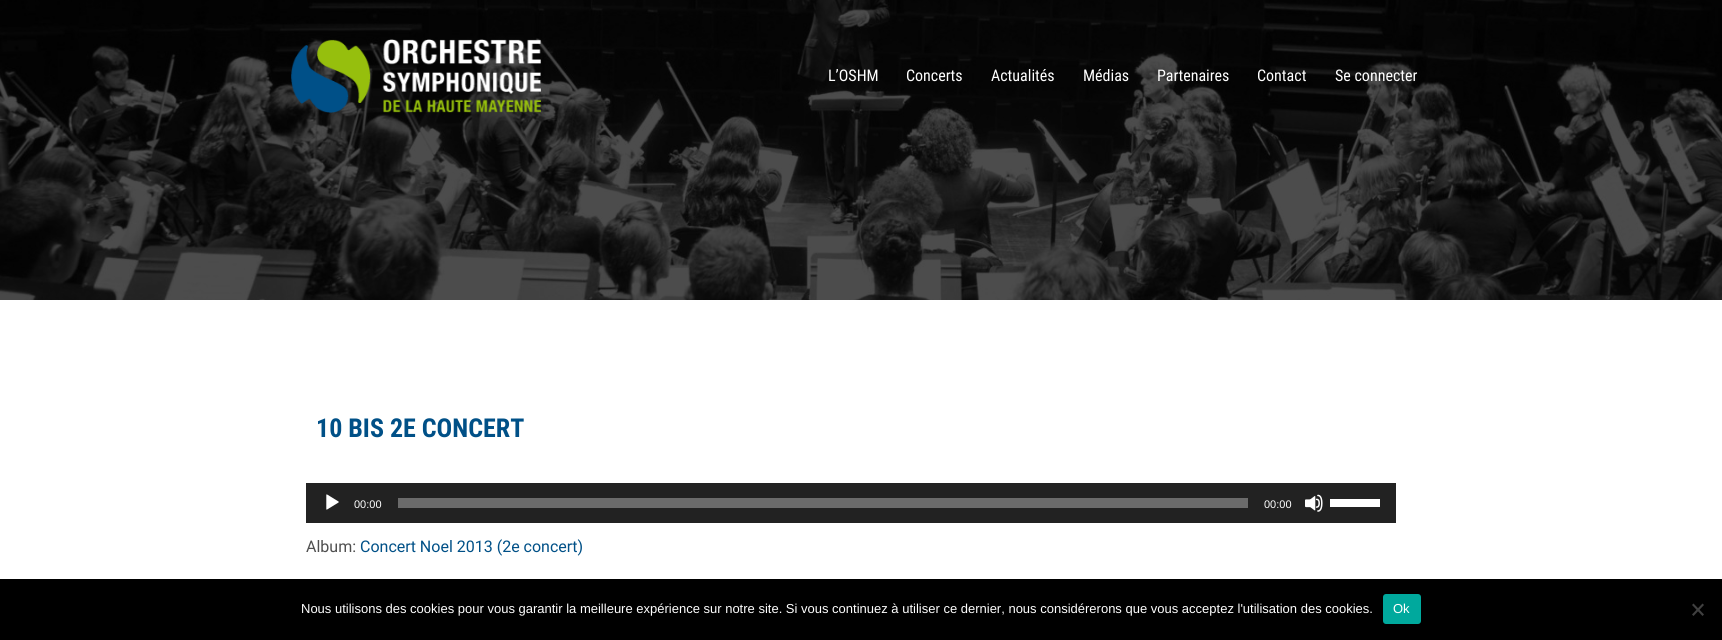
#include <cairo/cairo.h>
#include <math.h>
#include <stddef.h>

typedef struct { double x, y; const char *s; } line_t;
static cairo_t *cr;

static void rgb(unsigned color)
{
	cairo_set_source_rgb(cr, (color >> 16) / 255.0, (color >> 8 & 255) / 255.0, (color & 255) / 255.0);
}

static void rrect(double x, double y, double w, double h, double r)
{
	cairo_new_sub_path(cr);
	cairo_arc(cr, x + w - r, y + h - r, r, 0, M_PI / 2);
	cairo_arc(cr, x + r, y + h - r, r, M_PI / 2, M_PI);
	cairo_arc(cr, x + r, y + r, r, M_PI, 1.5 * M_PI);
	cairo_arc(cr, x + w - r, y + r, r, 1.5 * M_PI, 2 * M_PI);
	cairo_close_path(cr);
}

static void image(const char *path, double x, double y, double w, double h)
{
	cairo_surface_t *image = cairo_image_surface_create_from_png(path);
	cairo_save(cr);
	cairo_set_source_surface(cr, image, x, y);
	cairo_rectangle(cr, x, y, w, h);
	cairo_fill(cr);
	cairo_restore(cr);
	cairo_surface_destroy(image);
}

int main(void) {
	cairo_surface_t *surface = cairo_image_surface_create(CAIRO_FORMAT_RGB24, 1722, 640);
	cr = cairo_create(surface);
	cairo_font_options_t *options = cairo_font_options_create();
	cairo_font_options_set_hint_metrics(options, CAIRO_HINT_METRICS_OFF);
	cairo_font_options_set_hint_style(options, CAIRO_HINT_STYLE_NONE);
	cairo_set_font_options(cr, options);
	cairo_set_miter_limit(cr, 4);
	rgb(0xffffff);
	cairo_paint(cr);
	image("img/1.png", 0, 0, 1722, 300);
	image("img/2.png", 291, 39, 250, 74);
	rgb(0x222222);
	cairo_rectangle(cr, 306, 483, 1090, 40);
	cairo_fill(cr);
	image("img/3.png", 326, 494, 13, 16);
	rgb(0x6b6b6b);
	cairo_rectangle(cr, 398, 498, 850, 10);
	cairo_fill(cr);
	image("img/4.png", 1305, 494, 18, 18);
	rgb(0xffffff);
	cairo_rectangle(cr, 1330, 499, 50, 8);
	cairo_fill(cr);
	rgb(0x000000);
	cairo_rectangle(cr, 0, 579, 1722, 61);
	cairo_fill(cr);
	rgb(0x00a99d);
	rrect(1383, 594, 38, 30, 3);
	cairo_fill(cr);
	rgb(0x404040);
	cairo_new_path(cr);
	cairo_move_to(cr, 1702.5, 603.5);
	cairo_line_to(cr, 1704, 605);
	cairo_line_to(cr, 1693.5, 616);
	cairo_line_to(cr, 1692, 614.5);
	cairo_close_path(cr);
	cairo_fill(cr);
	cairo_new_path(cr);
	cairo_move_to(cr, 1692, 605);
	cairo_line_to(cr, 1693.5, 603.5);
	cairo_line_to(cr, 1704, 614.5);
	cairo_line_to(cr, 1702.5, 616);
	cairo_close_path(cr);
	cairo_fill(cr);
	cairo_select_font_face(cr, "Roboto Condensed", CAIRO_FONT_SLANT_NORMAL, CAIRO_FONT_WEIGHT_NORMAL);
	cairo_set_font_size(cr, 16);
	rgb(0xffffff);
	{
		static const line_t items[] = {
			{828, 81, "L’OSHM"},
			{906, 81, "Concerts"},
			{991, 81, "Actualités"},
			{1083, 81, "Médias"},
			{1157, 81, "Partenaires"},
			{1257, 81, "Contact"},
			{1335, 81, "Se connecter"},
		};
		for (size_t i = 0; i < sizeof items / sizeof *items; i++) {
			cairo_move_to(cr, items[i].x, items[i].y);
			cairo_show_text(cr, items[i].s);
		}
	}
	cairo_select_font_face(cr, "Roboto Condensed", CAIRO_FONT_SLANT_NORMAL, CAIRO_FONT_WEIGHT_BOLD);
	cairo_set_font_size(cr, 26);
	rgb(0x005087);
	cairo_move_to(cr, 316, 437);
	cairo_show_text(cr, "10 BIS 2E CONCERT");
	cairo_select_font_face(cr, "Liberation Sans", CAIRO_FONT_SLANT_NORMAL, CAIRO_FONT_WEIGHT_NORMAL);
	cairo_set_font_size(cr, 11);
	rgb(0xffffff);
	cairo_move_to(cr, 354, 508);
	cairo_show_text(cr, "00:00");
	cairo_move_to(cr, 1264, 508);
	cairo_show_text(cr, "00:00");
	cairo_select_font_face(cr, "Roboto", CAIRO_FONT_SLANT_NORMAL, CAIRO_FONT_WEIGHT_NORMAL);
	cairo_set_font_size(cr, 16);
	rgb(0x4f4f4f);
	cairo_move_to(cr, 306, 552);
	cairo_show_text(cr, "Album:");
	rgb(0x005087);
	cairo_move_to(cr, 360, 552);
	cairo_show_text(cr, "Concert Noel 2013 (2e concert)");
	cairo_select_font_face(cr, "Liberation Sans", CAIRO_FONT_SLANT_NORMAL, CAIRO_FONT_WEIGHT_NORMAL);
	cairo_set_font_size(cr, 13);
	rgb(0xffffff);
	cairo_move_to(cr, 301, 613);
	cairo_show_text(cr, "Nous utilisons des cookies pour vous garantir la meilleure expérience sur notre site. Si vous continuez à utiliser ce dernier, nous considérerons que vous acceptez l'utilisation des cookies.");
	cairo_move_to(cr, 1393, 613);
	cairo_show_text(cr, "Ok");
	cairo_surface_write_to_png(surface, "page.png");
	cairo_font_options_destroy(options);
	cairo_destroy(cr);
	cairo_surface_destroy(surface);
	return 0;
}
